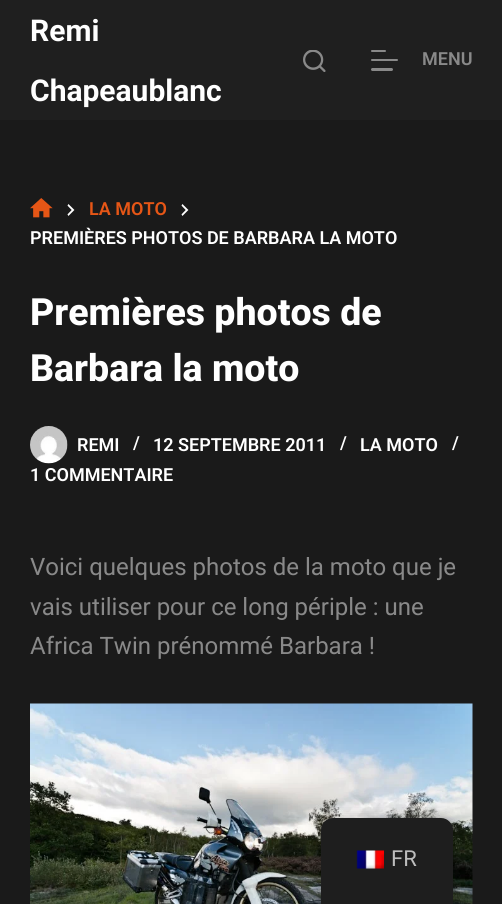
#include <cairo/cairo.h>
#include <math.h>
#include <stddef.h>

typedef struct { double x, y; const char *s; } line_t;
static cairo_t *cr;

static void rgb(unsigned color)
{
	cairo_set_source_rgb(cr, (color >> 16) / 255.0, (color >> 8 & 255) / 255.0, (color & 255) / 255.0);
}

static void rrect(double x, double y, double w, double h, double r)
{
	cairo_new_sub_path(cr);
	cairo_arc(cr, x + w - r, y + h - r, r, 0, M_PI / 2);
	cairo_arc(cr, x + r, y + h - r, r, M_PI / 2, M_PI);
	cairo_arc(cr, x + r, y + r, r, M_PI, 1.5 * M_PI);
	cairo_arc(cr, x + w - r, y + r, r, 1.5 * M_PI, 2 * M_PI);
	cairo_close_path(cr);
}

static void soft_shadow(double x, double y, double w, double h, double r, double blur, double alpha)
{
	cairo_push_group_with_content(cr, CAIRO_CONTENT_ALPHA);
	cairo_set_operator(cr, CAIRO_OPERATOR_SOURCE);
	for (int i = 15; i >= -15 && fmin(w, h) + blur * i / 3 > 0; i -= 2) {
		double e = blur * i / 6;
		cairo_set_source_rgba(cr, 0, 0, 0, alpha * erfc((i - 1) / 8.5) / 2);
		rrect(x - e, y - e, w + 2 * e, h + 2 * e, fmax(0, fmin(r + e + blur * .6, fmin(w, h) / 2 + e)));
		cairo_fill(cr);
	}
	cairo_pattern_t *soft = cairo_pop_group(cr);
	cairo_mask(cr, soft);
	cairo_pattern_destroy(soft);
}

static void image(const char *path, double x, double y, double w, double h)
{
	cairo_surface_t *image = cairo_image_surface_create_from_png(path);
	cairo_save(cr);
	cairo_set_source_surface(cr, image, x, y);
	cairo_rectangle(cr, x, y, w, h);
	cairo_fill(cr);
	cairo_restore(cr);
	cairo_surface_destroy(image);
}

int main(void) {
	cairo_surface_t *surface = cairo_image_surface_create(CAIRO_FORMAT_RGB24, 502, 904);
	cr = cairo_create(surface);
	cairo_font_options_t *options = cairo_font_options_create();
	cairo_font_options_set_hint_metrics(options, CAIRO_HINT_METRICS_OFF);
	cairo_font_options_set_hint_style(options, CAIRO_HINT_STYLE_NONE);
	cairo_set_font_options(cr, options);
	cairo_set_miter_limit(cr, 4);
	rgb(0x1a1a1a);
	cairo_paint(cr);
	rgb(0x1f1f1f);
	cairo_rectangle(cr, 0, 0, 502, 120);
	cairo_fill(cr);
	image("img/1.png", 303, 50, 23, 22);
	rgb(0x898989);
	rrect(371, 50, 15, 2, 1);
	cairo_fill(cr);
	rrect(371, 59, 27, 2, 1);
	cairo_fill(cr);
	rrect(371, 68, 22, 3, 1.5);
	cairo_fill(cr);
	image("img/2.png", 30, 198, 23, 20);
	image("img/3.png", 67, 204, 8, 12);
	image("img/3.png", 181, 204, 8, 12);
	image("img/4.png", 30, 426, 38, 38);
	image("img/5.png", 30, 703, 443, 201);
	rgb(0x000000);
	soft_shadow(321, 818, 132, 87, 12, 6, 0.25);
	rgb(0x1e1e1e);
	cairo_new_path(cr);
	cairo_move_to(cr, 333, 818);
	cairo_line_to(cr, 441, 818);
	cairo_curve_to(cr, 447.5, 818, 453, 823.5, 453, 830);
	cairo_line_to(cr, 453, 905);
	cairo_line_to(cr, 321, 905);
	cairo_line_to(cr, 321, 830);
	cairo_curve_to(cr, 321, 823.5, 326.5, 818, 333, 818);
	cairo_close_path(cr);
	cairo_fill(cr);
	image("img/6.png", 356, 850, 28, 19);
	cairo_select_font_face(cr, "Roboto", CAIRO_FONT_SLANT_NORMAL, CAIRO_FONT_WEIGHT_BOLD);
	cairo_set_font_size(cr, 30);
	rgb(0xffffff);
	cairo_move_to(cr, 30, 41);
	cairo_show_text(cr, "Remi");
	cairo_move_to(cr, 30, 101);
	cairo_show_text(cr, "Chapeaublanc");
	cairo_select_font_face(cr, "Roboto SemiBold", CAIRO_FONT_SLANT_NORMAL, CAIRO_FONT_WEIGHT_NORMAL);
	cairo_set_font_size(cr, 18);
	rgb(0x898989);
	cairo_move_to(cr, 422, 65);
	cairo_show_text(cr, "MENU");
	rgb(0xe65616);
	cairo_move_to(cr, 89, 215);
	cairo_show_text(cr, "LA MOTO");
	rgb(0xffffff);
	cairo_move_to(cr, 30, 244);
	cairo_show_text(cr, "PREMIÈRES PHOTOS DE BARBARA LA MOTO");
	cairo_select_font_face(cr, "Roboto ExtraBold", CAIRO_FONT_SLANT_NORMAL, CAIRO_FONT_WEIGHT_NORMAL);
	cairo_set_font_size(cr, 37.5);
	cairo_move_to(cr, 30, 325);
	cairo_show_text(cr, "Premières photos de");
	cairo_move_to(cr, 30, 381);
	cairo_show_text(cr, "Barbara la moto");
	cairo_select_font_face(cr, "Roboto SemiBold", CAIRO_FONT_SLANT_NORMAL, CAIRO_FONT_WEIGHT_NORMAL);
	cairo_set_font_size(cr, 18);
	{
		static const line_t items[] = {
			{77, 451, "REMI"},
			{133, 449, "/"},
			{153, 451, "12 SEPTEMBRE 2011"},
			{340, 449, "/"},
			{360, 451, "LA MOTO"},
			{452, 449, "/"},
			{30, 481, "1 COMMENTAIRE"},
		};
		for (size_t i = 0; i < sizeof items / sizeof *items; i++) {
			cairo_move_to(cr, items[i].x, items[i].y);
			cairo_show_text(cr, items[i].s);
		}
	}
	cairo_select_font_face(cr, "Roboto", CAIRO_FONT_SLANT_NORMAL, CAIRO_FONT_WEIGHT_NORMAL);
	cairo_set_font_size(cr, 24);
	rgb(0x898989);
	{
		static const line_t items[] = {
			{30, 575, "Voici quelques photos de la moto que je"},
			{30, 615, "vais utiliser pour ce long périple : une"},
			{30, 654, "Africa Twin prénommé Barbara !"},
		};
		for (size_t i = 0; i < sizeof items / sizeof *items; i++) {
			cairo_move_to(cr, items[i].x, items[i].y);
			cairo_show_text(cr, items[i].s);
		}
	}
	cairo_set_font_size(cr, 22);
	rgb(0xbdbdbd);
	cairo_move_to(cr, 391, 866);
	cairo_show_text(cr, "FR");
	cairo_surface_write_to_png(surface, "page.png");
	cairo_font_options_destroy(options);
	cairo_destroy(cr);
	cairo_surface_destroy(surface);
	return 0;
}
